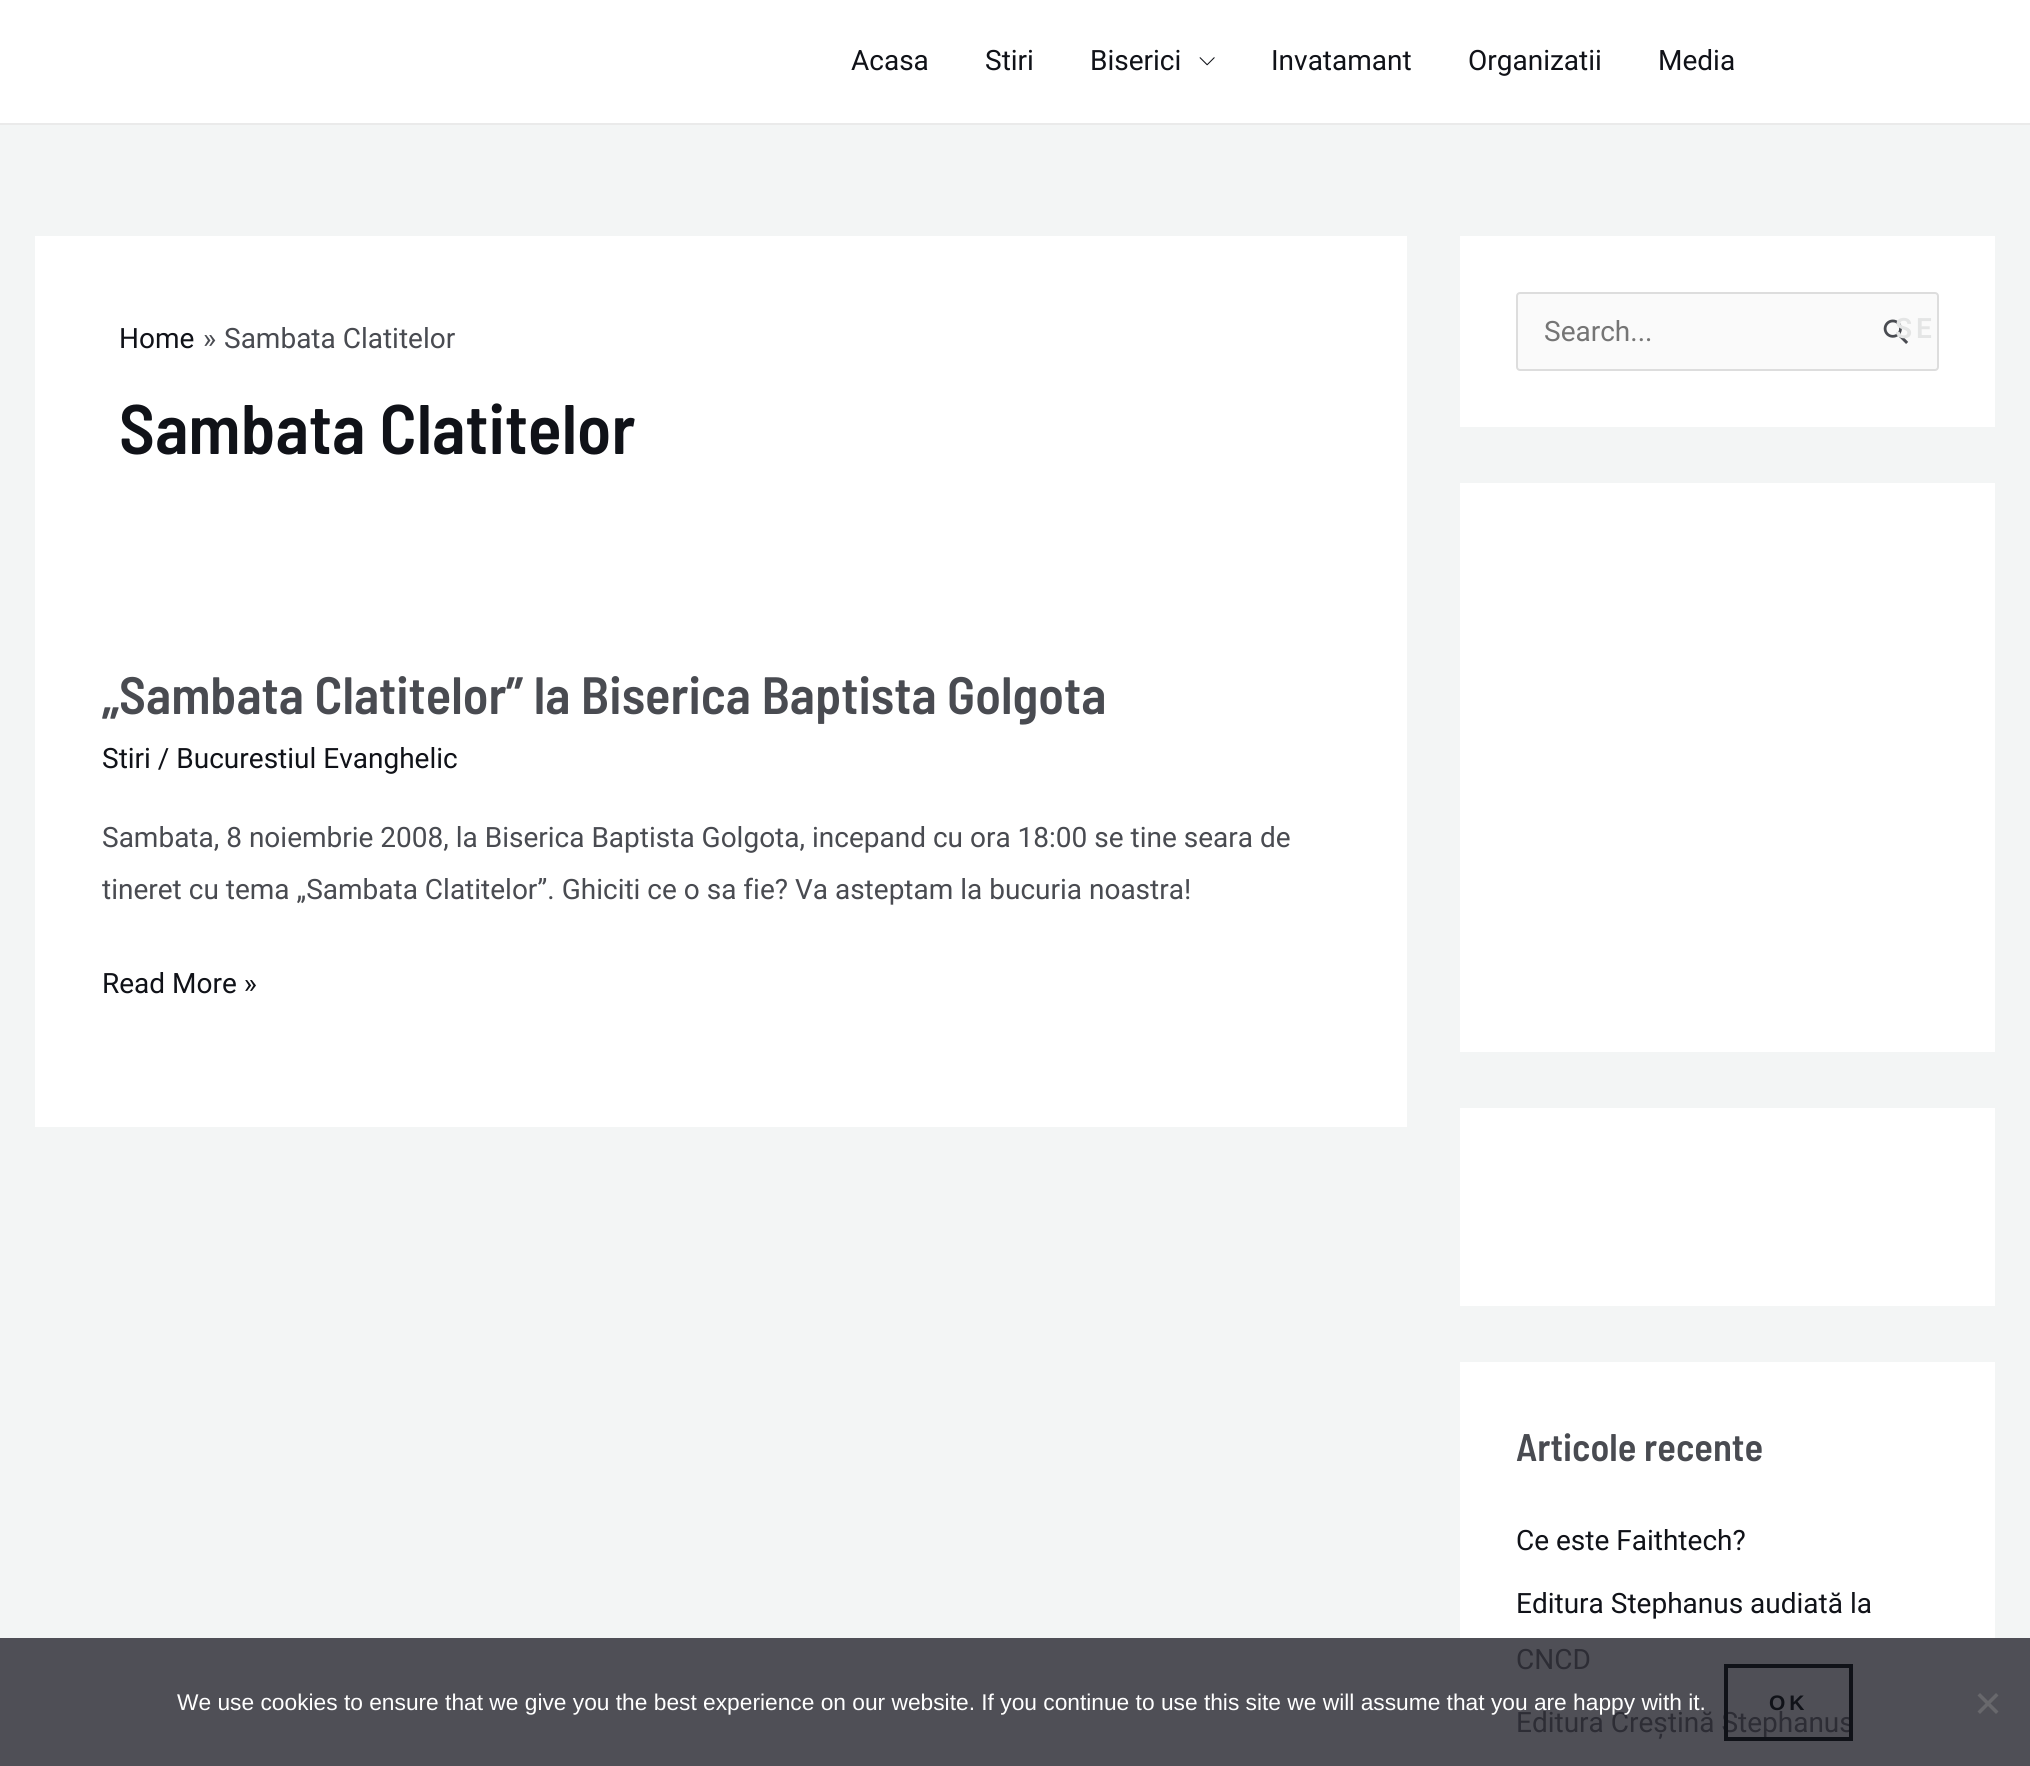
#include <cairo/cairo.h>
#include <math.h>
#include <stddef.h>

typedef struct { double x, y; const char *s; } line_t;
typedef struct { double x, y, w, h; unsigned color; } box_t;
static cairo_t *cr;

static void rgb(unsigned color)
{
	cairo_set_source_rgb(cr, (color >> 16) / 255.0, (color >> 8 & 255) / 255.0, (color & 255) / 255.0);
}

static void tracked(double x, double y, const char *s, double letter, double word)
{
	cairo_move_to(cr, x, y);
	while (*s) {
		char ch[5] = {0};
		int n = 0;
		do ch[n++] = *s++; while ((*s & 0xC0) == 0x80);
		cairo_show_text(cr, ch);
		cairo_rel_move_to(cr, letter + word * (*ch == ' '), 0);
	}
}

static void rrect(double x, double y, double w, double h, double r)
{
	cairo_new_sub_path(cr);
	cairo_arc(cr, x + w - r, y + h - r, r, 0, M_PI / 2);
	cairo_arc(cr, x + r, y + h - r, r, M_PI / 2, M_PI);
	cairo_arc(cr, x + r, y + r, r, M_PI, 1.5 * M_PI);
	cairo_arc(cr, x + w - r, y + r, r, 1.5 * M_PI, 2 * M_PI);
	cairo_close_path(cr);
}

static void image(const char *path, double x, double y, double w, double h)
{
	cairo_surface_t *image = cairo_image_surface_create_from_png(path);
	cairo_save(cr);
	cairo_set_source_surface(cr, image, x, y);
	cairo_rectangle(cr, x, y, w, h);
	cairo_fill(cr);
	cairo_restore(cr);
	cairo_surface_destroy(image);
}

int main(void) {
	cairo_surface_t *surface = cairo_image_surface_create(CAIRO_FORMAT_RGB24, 2030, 1766);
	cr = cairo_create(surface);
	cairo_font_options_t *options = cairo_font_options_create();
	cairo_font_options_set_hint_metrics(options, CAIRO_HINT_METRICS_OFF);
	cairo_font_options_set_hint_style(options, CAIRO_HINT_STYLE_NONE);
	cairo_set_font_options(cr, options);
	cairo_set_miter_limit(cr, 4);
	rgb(0xf3f5f5);
	cairo_paint(cr);
	{
		static const box_t items[] = {
			{0, 1638, 2030, 128, 0x4f4f56},
			{0, 0, 2030, 123, 0xffffff},
			{0, 123, 2030, 2, 0xeaeaea},
		};
		for (size_t i = 0; i < sizeof items / sizeof *items; i++) {
			rgb(items[i].color);
			cairo_rectangle(cr, items[i].x, items[i].y, items[i].w, items[i].h);
			cairo_fill(cr);
		}
	}
	image("img/1.png", 1199, 57, 16, 9);
	rgb(0xffffff);
	cairo_rectangle(cr, 35, 236, 1372, 891);
	cairo_fill(cr);
	cairo_rectangle(cr, 1460, 236, 535, 191);
	cairo_fill(cr);
	rgb(0xfafafa);
	rrect(1517, 293, 421, 77, 3);
	cairo_fill_preserve(cr);
	rgb(0xdddddd);
	cairo_stroke(cr);
	image("img/2.png", 1883, 319, 26, 25);
	{
		static const box_t items[] = {
			{1460, 483, 535, 569, 0xffffff},
			{1460, 1108, 535, 198, 0xffffff},
			{1460, 1362, 535, 276, 0xffffff},
		};
		for (size_t i = 0; i < sizeof items / sizeof *items; i++) {
			rgb(items[i].color);
			cairo_rectangle(cr, items[i].x, items[i].y, items[i].w, items[i].h);
			cairo_fill(cr);
		}
	}
	rgb(0x68686c);
	cairo_new_path(cr);
	cairo_move_to(cr, 1996, 1693);
	cairo_line_to(cr, 1998.5, 1695.5);
	cairo_line_to(cr, 1980, 1714);
	cairo_line_to(cr, 1977.5, 1711.5);
	cairo_close_path(cr);
	cairo_fill(cr);
	cairo_new_path(cr);
	cairo_move_to(cr, 1977.5, 1695.5);
	cairo_line_to(cr, 1980, 1693);
	cairo_line_to(cr, 1998.5, 1711.5);
	cairo_line_to(cr, 1996, 1714);
	cairo_close_path(cr);
	cairo_fill(cr);
	cairo_select_font_face(cr, "Roboto", CAIRO_FONT_SLANT_NORMAL, CAIRO_FONT_WEIGHT_NORMAL);
	cairo_set_font_size(cr, 28);
	rgb(0x101218);
	{
		static const line_t items[] = {
			{851, 70, "Acasa"},
			{985, 70, "Stiri"},
			{1090, 70, "Biserici"},
			{1271, 70, "Invatamant"},
			{1468, 70, "Organizatii"},
			{1658, 70, "Media"},
			{119, 348, "Home"},
		};
		for (size_t i = 0; i < sizeof items / sizeof *items; i++) {
			cairo_move_to(cr, items[i].x, items[i].y);
			cairo_show_text(cr, items[i].s);
		}
	}
	rgb(0x494b51);
	cairo_move_to(cr, 203, 348);
	cairo_show_text(cr, "»");
	cairo_move_to(cr, 224, 348);
	cairo_show_text(cr, "Sambata Clatitelor");
	cairo_select_font_face(cr, "Barlow Semi Condensed SemiBold", CAIRO_FONT_SLANT_NORMAL, CAIRO_FONT_WEIGHT_NORMAL);
	cairo_set_font_size(cr, 70);
	rgb(0x101218);
	cairo_move_to(cr, 119, 454);
	cairo_show_text(cr, "Sambata Clatitelor");
	cairo_set_font_size(cr, 52.5);
	rgb(0x494b51);
	cairo_move_to(cr, 102, 714);
	cairo_show_text(cr, "„Sambata Clatitelor” la Biserica Baptista Golgota");
	cairo_select_font_face(cr, "Roboto", CAIRO_FONT_SLANT_NORMAL, CAIRO_FONT_WEIGHT_NORMAL);
	cairo_set_font_size(cr, 28);
	rgb(0x101218);
	cairo_move_to(cr, 102, 768);
	cairo_show_text(cr, "Stiri / Bucurestiul Evanghelic");
	rgb(0x494b51);
	cairo_move_to(cr, 102, 847);
	cairo_show_text(cr, "Sambata, 8 noiembrie 2008, la Biserica Baptista Golgota, incepand cu ora 18:00 se tine seara de");
	cairo_move_to(cr, 102, 899);
	cairo_show_text(cr, "tineret cu tema „Sambata Clatitelor”. Ghiciti ce o sa fie? Va asteptam la bucuria noastra!");
	rgb(0x101218);
	cairo_move_to(cr, 102, 993);
	cairo_show_text(cr, "Read More »");
	cairo_select_font_face(cr, "Roboto SemiBold", CAIRO_FONT_SLANT_NORMAL, CAIRO_FONT_WEIGHT_NORMAL);
	rgb(0xe4e5e5);
	tracked(1895, 338, "SE", 4, 0);
	cairo_select_font_face(cr, "Roboto", CAIRO_FONT_SLANT_NORMAL, CAIRO_FONT_WEIGHT_NORMAL);
	rgb(0x757575);
	cairo_move_to(cr, 1544, 341);
	cairo_show_text(cr, "Search...");
	cairo_select_font_face(cr, "Barlow Semi Condensed SemiBold", CAIRO_FONT_SLANT_NORMAL, CAIRO_FONT_WEIGHT_NORMAL);
	cairo_set_font_size(cr, 38.5);
	rgb(0x494b51);
	cairo_move_to(cr, 1516, 1461);
	cairo_show_text(cr, "Articole recente");
	cairo_select_font_face(cr, "Roboto", CAIRO_FONT_SLANT_NORMAL, CAIRO_FONT_WEIGHT_NORMAL);
	cairo_set_font_size(cr, 28);
	rgb(0x101218);
	cairo_move_to(cr, 1516, 1550);
	cairo_show_text(cr, "Ce este Faithtech?");
	cairo_move_to(cr, 1516, 1613);
	cairo_show_text(cr, "Editura Stephanus audiată la");
	rgb(0x2d2d35);
	cairo_move_to(cr, 1516, 1669);
	cairo_show_text(cr, "CNCD");
	cairo_move_to(cr, 1516, 1732);
	cairo_show_text(cr, "Editura Creștină Stephanus");
	cairo_select_font_face(cr, "Liberation Sans", CAIRO_FONT_SLANT_NORMAL, CAIRO_FONT_WEIGHT_NORMAL);
	cairo_set_font_size(cr, 22.75);
	rgb(0xffffff);
	cairo_move_to(cr, 177, 1710);
	cairo_show_text(cr, "We use cookies to ensure that we give you the best experience on our website. If you continue to use this site we will assume that you are happy with it.");
	cairo_rectangle(cr, 1726, 1666, 125, 73);
	rgb(0x101218);
	cairo_set_line_width(cr, 4);
	cairo_stroke(cr);
	cairo_select_font_face(cr, "Liberation Sans", CAIRO_FONT_SLANT_NORMAL, CAIRO_FONT_WEIGHT_BOLD);
	cairo_set_font_size(cr, 21);
	tracked(1769, 1710, "OK", 4, 0);
	cairo_surface_write_to_png(surface, "page.png");
	cairo_font_options_destroy(options);
	cairo_destroy(cr);
	cairo_surface_destroy(surface);
	return 0;
}
